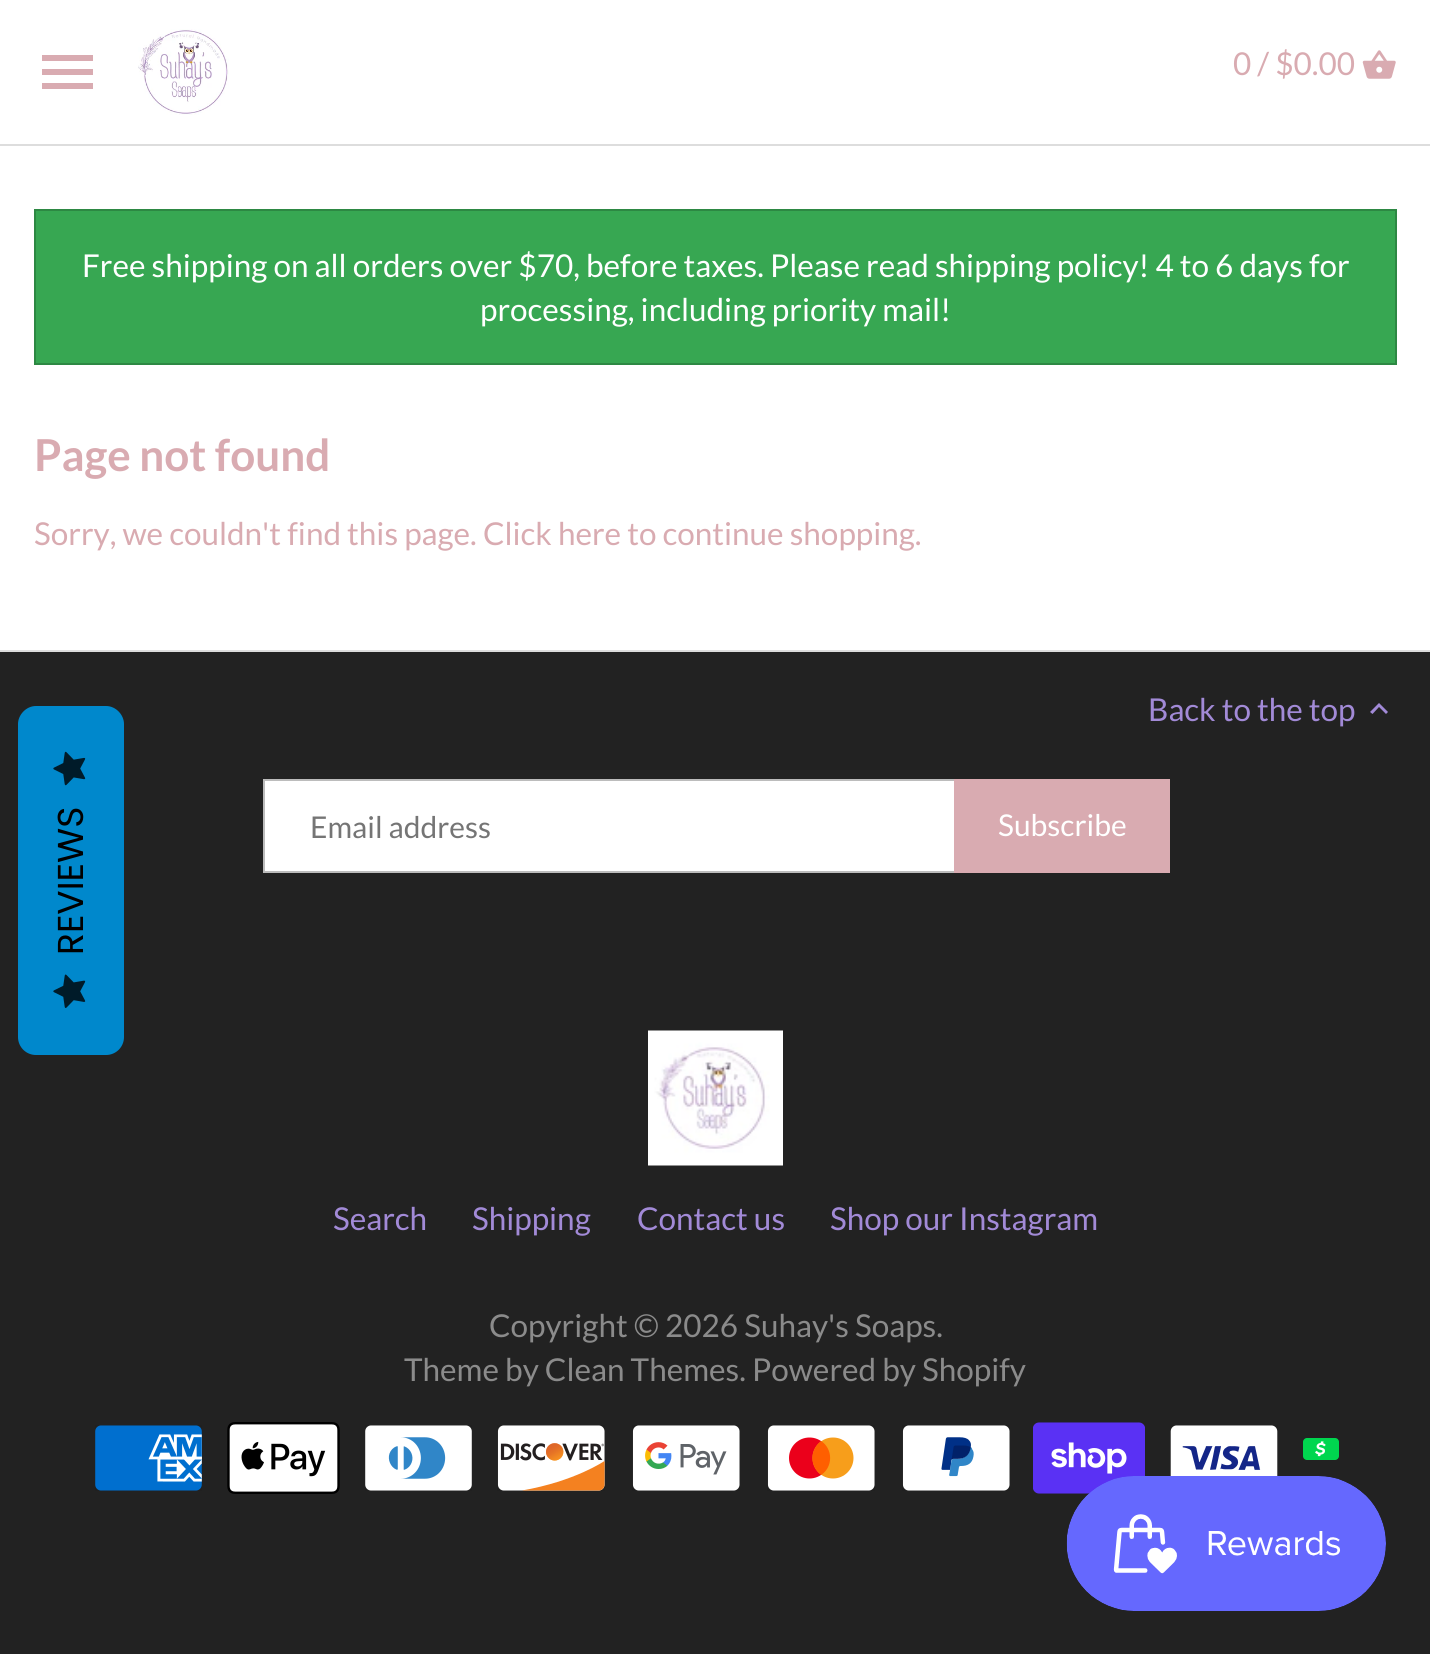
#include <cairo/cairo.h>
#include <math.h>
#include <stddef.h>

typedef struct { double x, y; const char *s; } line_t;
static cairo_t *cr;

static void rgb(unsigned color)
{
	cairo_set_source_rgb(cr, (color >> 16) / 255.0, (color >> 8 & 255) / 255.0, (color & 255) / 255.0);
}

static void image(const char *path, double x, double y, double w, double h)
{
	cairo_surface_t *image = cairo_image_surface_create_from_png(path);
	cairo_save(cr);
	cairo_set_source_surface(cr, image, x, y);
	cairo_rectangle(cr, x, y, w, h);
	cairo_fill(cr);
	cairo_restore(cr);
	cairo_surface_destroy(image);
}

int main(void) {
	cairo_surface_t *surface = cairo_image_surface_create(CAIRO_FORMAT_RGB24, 1430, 1654);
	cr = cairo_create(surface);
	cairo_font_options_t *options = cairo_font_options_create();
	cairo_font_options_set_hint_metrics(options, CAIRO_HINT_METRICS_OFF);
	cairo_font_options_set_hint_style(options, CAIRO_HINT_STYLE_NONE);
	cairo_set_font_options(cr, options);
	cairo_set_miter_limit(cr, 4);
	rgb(0x222222);
	cairo_paint(cr);
	rgb(0xffffff);
	cairo_rectangle(cr, 0, 0, 1430, 650);
	cairo_fill(cr);
	rgb(0xdddddd);
	cairo_rectangle(cr, 0, 144, 1430, 2);
	cairo_fill(cr);
	rgb(0xd9abb1);
	cairo_new_path(cr);
	cairo_move_to(cr, 42, 89);
	cairo_line_to(cr, 93, 89);
	cairo_line_to(cr, 93, 83);
	cairo_line_to(cr, 42, 83);
	cairo_close_path(cr);
	cairo_move_to(cr, 42, 75);
	cairo_line_to(cr, 93, 75);
	cairo_line_to(cr, 93, 69);
	cairo_line_to(cr, 42, 69);
	cairo_close_path(cr);
	cairo_move_to(cr, 42, 55);
	cairo_line_to(cr, 42, 61);
	cairo_line_to(cr, 93, 61);
	cairo_line_to(cr, 93, 55);
	cairo_close_path(cr);
	cairo_fill(cr);
	image("img/1.png", 138, 29, 91, 86);
	image("img/2.png", 1362, 50, 34, 29);
	rgb(0x37a752);
	cairo_rectangle(cr, 35, 210, 1361, 154);
	cairo_fill_preserve(cr);
	rgb(0x2d8843);
	cairo_stroke(cr);
	rgb(0xdddddd);
	cairo_rectangle(cr, 0, 650, 1430, 2);
	cairo_fill(cr);
	rgb(0xa28ad7);
	cairo_new_path(cr);
	cairo_move_to(cr, 1372.5, 714);
	cairo_line_to(cr, 1379, 707);
	cairo_line_to(cr, 1386, 714);
	cairo_line_to(cr, 1388, 712);
	cairo_line_to(cr, 1379, 703);
	cairo_line_to(cr, 1370, 712);
	cairo_close_path(cr);
	cairo_fill(cr);
	rgb(0xffffff);
	cairo_rectangle(cr, 265, 781, 689, 90);
	cairo_fill(cr);
	cairo_rectangle(cr, 264, 780, 903, 92);
	rgb(0xbcbcbc);
	cairo_stroke(cr);
	rgb(0xd9abb1);
	cairo_rectangle(cr, 954, 779, 216, 94);
	cairo_fill(cr);
	image("img/3.png", 648, 1030, 135, 136);
	image("img/4.png", 95, 1425, 107, 66);
	image("img/5.png", 227, 1422, 113, 72);
	image("img/6.png", 365, 1425, 107, 66);
	image("img/7.png", 497, 1425, 108, 66);
	image("img/8.png", 632, 1425, 108, 66);
	image("img/9.png", 767, 1425, 108, 66);
	image("img/10.png", 902, 1425, 108, 66);
	image("img/11.png", 1033, 1422, 112, 72);
	image("img/12.png", 1170, 1425, 108, 51);
	image("img/13.png", 1303, 1438, 36, 22);
	rgb(0x0088cc);
	cairo_new_path(cr);
	cairo_move_to(cr, 18, 1037);
	cairo_line_to(cr, 18, 724);
	cairo_curve_to(cr, 18, 715, 26, 706, 36, 706);
	cairo_line_to(cr, 106, 706);
	cairo_curve_to(cr, 116, 706, 124, 715, 124, 724);
	cairo_line_to(cr, 124, 1037);
	cairo_curve_to(cr, 124, 1047, 116, 1055, 106, 1055);
	cairo_line_to(cr, 36, 1055);
	cairo_curve_to(cr, 26, 1055, 18, 1047, 18, 1037);
	cairo_close_path(cr);
	cairo_fill(cr);
	image("img/14.png", 53, 751, 33, 35);
	image("img/15.png", 53, 974, 33, 34);
	image("img/16.png", 1066, 1476, 320, 135);
	cairo_select_font_face(cr, "Lato", CAIRO_FONT_SLANT_NORMAL, CAIRO_FONT_WEIGHT_NORMAL);
	cairo_set_font_size(cr, 31.5);
	rgb(0xd9abb1);
	cairo_move_to(cr, 1233, 75);
	cairo_show_text(cr, "0 / $0.00");
	rgb(0xffffff);
	cairo_move_to(cr, 82, 277);
	cairo_show_text(cr, "Free shipping on all orders over $70, before taxes. Please read shipping policy! 4 to 6 days for");
	cairo_move_to(cr, 480, 321);
	cairo_show_text(cr, "processing, including priority mail!");
	cairo_select_font_face(cr, "Lato", CAIRO_FONT_SLANT_NORMAL, CAIRO_FONT_WEIGHT_BOLD);
	cairo_set_font_size(cr, 44);
	rgb(0xd9abb1);
	cairo_move_to(cr, 34, 471);
	cairo_show_text(cr, "Page not found");
	cairo_select_font_face(cr, "Lato", CAIRO_FONT_SLANT_NORMAL, CAIRO_FONT_WEIGHT_NORMAL);
	cairo_set_font_size(cr, 31.5);
	cairo_move_to(cr, 34, 545);
	cairo_show_text(cr, "Sorry, we couldn't find this page. Click here to continue shopping.");
	rgb(0xa28ad7);
	cairo_move_to(cr, 1148, 721);
	cairo_show_text(cr, "Back to the top");
	cairo_set_font_size(cr, 30);
	rgb(0x757575);
	cairo_move_to(cr, 310, 838);
	cairo_show_text(cr, "Email address");
	rgb(0xffffff);
	cairo_move_to(cr, 998, 836);
	cairo_show_text(cr, "Subscribe");
	cairo_set_font_size(cr, 31.5);
	rgb(0xa28ad7);
	{
		static const line_t items[] = {
			{333, 1230, "Search"},
			{472, 1230, "Shipping"},
			{637, 1230, "Contact us"},
			{830, 1230, "Shop our Instagram"},
		};
		for (size_t i = 0; i < sizeof items / sizeof *items; i++) {
			cairo_move_to(cr, items[i].x, items[i].y);
			cairo_show_text(cr, items[i].s);
		}
	}
	rgb(0x8b8b8b);
	cairo_move_to(cr, 489, 1337);
	cairo_show_text(cr, "Copyright © 2026 Suhay's Soaps.");
	cairo_move_to(cr, 404, 1381);
	cairo_show_text(cr, "Theme by Clean Themes. Powered by Shopify");
	cairo_select_font_face(cr, "Poppins", CAIRO_FONT_SLANT_NORMAL, CAIRO_FONT_WEIGHT_NORMAL);
	cairo_set_font_size(cr, 36);
	rgb(0x000000);
	cairo_save(cr);
	cairo_translate(cr, 83, 955);
	cairo_rotate(cr, -90 * M_PI / 180);
	cairo_move_to(cr, 0, 0);
	cairo_show_text(cr, "REVIEWS");
	cairo_restore(cr);
	cairo_surface_write_to_png(surface, "page.png");
	cairo_font_options_destroy(options);
	cairo_destroy(cr);
	cairo_surface_destroy(surface);
	return 0;
}
